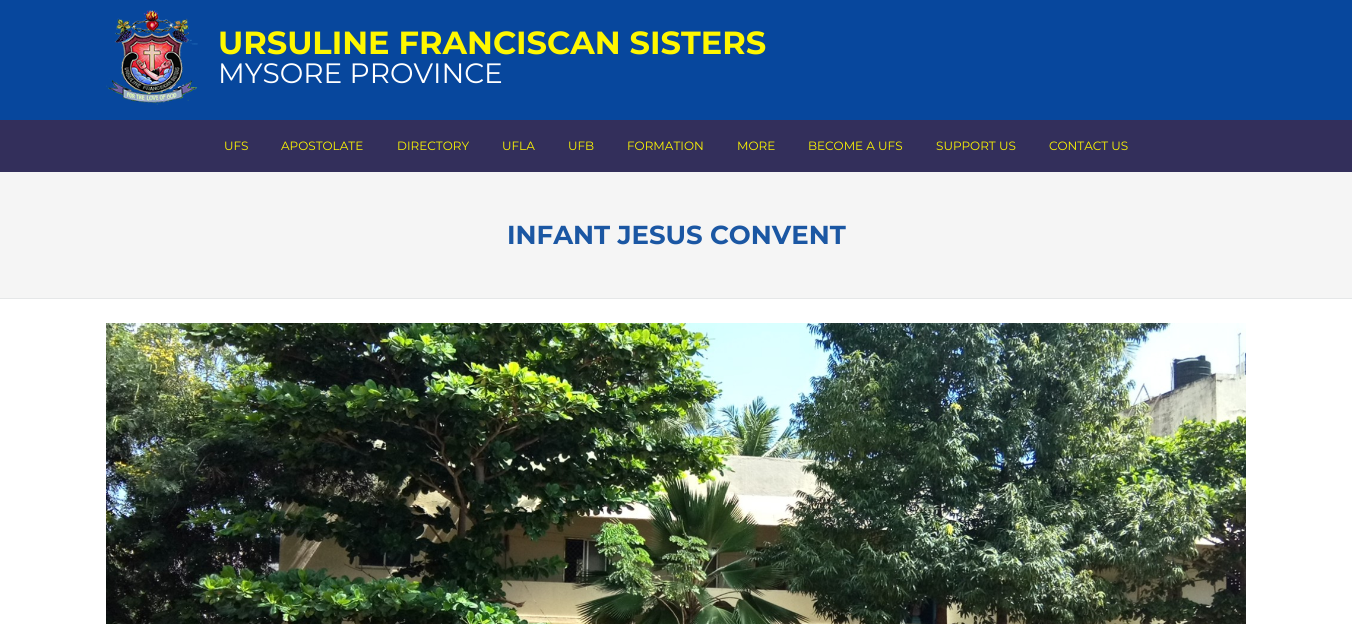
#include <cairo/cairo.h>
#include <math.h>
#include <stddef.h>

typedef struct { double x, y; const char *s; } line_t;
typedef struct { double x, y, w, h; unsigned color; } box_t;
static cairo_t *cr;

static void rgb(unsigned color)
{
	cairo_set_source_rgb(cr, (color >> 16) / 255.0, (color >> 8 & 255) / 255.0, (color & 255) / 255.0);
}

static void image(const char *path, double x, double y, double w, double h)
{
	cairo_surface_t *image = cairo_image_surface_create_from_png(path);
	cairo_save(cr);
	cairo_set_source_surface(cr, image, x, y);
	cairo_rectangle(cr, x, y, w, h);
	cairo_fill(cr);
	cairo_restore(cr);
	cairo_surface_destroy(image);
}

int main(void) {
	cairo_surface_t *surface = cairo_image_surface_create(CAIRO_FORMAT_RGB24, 1352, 624);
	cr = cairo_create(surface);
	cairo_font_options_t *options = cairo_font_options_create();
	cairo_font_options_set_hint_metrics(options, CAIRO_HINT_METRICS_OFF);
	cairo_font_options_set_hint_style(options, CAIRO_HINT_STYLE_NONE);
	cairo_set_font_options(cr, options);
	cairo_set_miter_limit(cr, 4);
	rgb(0xffffff);
	cairo_paint(cr);
	rgb(0x07479d);
	cairo_rectangle(cr, 0, 0, 1352, 120);
	cairo_fill(cr);
	image("img/1.png", 106, 10, 92, 95);
	{
		static const box_t items[] = {
			{0, 120, 1352, 52, 0x332f5b},
			{0, 172, 1352, 126, 0xf5f5f5},
			{0, 298, 1352, 1, 0xe5e7e8},
		};
		for (size_t i = 0; i < sizeof items / sizeof *items; i++) {
			rgb(items[i].color);
			cairo_rectangle(cr, items[i].x, items[i].y, items[i].w, items[i].h);
			cairo_fill(cr);
		}
	}
	image("img/2.png", 106, 323, 1140, 301);
	cairo_select_font_face(cr, "Montserrat", CAIRO_FONT_SLANT_NORMAL, CAIRO_FONT_WEIGHT_BOLD);
	cairo_set_font_size(cr, 32);
	rgb(0xfff700);
	cairo_move_to(cr, 218, 54);
	cairo_show_text(cr, "URSULINE FRANCISCAN SISTERS");
	cairo_select_font_face(cr, "Montserrat", CAIRO_FONT_SLANT_NORMAL, CAIRO_FONT_WEIGHT_NORMAL);
	cairo_set_font_size(cr, 28);
	rgb(0xffffff);
	cairo_move_to(cr, 218, 83);
	cairo_show_text(cr, "MYSORE PROVINCE");
	cairo_set_font_size(cr, 12);
	rgb(0xfff700);
	{
		static const line_t items[] = {
			{224, 150, "UFS"},
			{281, 150, "APOSTOLATE"},
			{397, 150, "DIRECTORY"},
			{502, 150, "UFLA"},
			{568, 150, "UFB"},
			{627, 150, "FORMATION"},
			{737, 150, "MORE"},
			{808, 150, "BECOME A UFS"},
			{936, 150, "SUPPORT US"},
			{1049, 150, "CONTACT US"},
		};
		for (size_t i = 0; i < sizeof items / sizeof *items; i++) {
			cairo_move_to(cr, items[i].x, items[i].y);
			cairo_show_text(cr, items[i].s);
		}
	}
	cairo_select_font_face(cr, "Montserrat", CAIRO_FONT_SLANT_NORMAL, CAIRO_FONT_WEIGHT_BOLD);
	cairo_set_font_size(cr, 26);
	rgb(0x1b57a3);
	cairo_move_to(cr, 507, 244);
	cairo_show_text(cr, "INFANT JESUS CONVENT");
	cairo_surface_write_to_png(surface, "page.png");
	cairo_font_options_destroy(options);
	cairo_destroy(cr);
	cairo_surface_destroy(surface);
	return 0;
}
